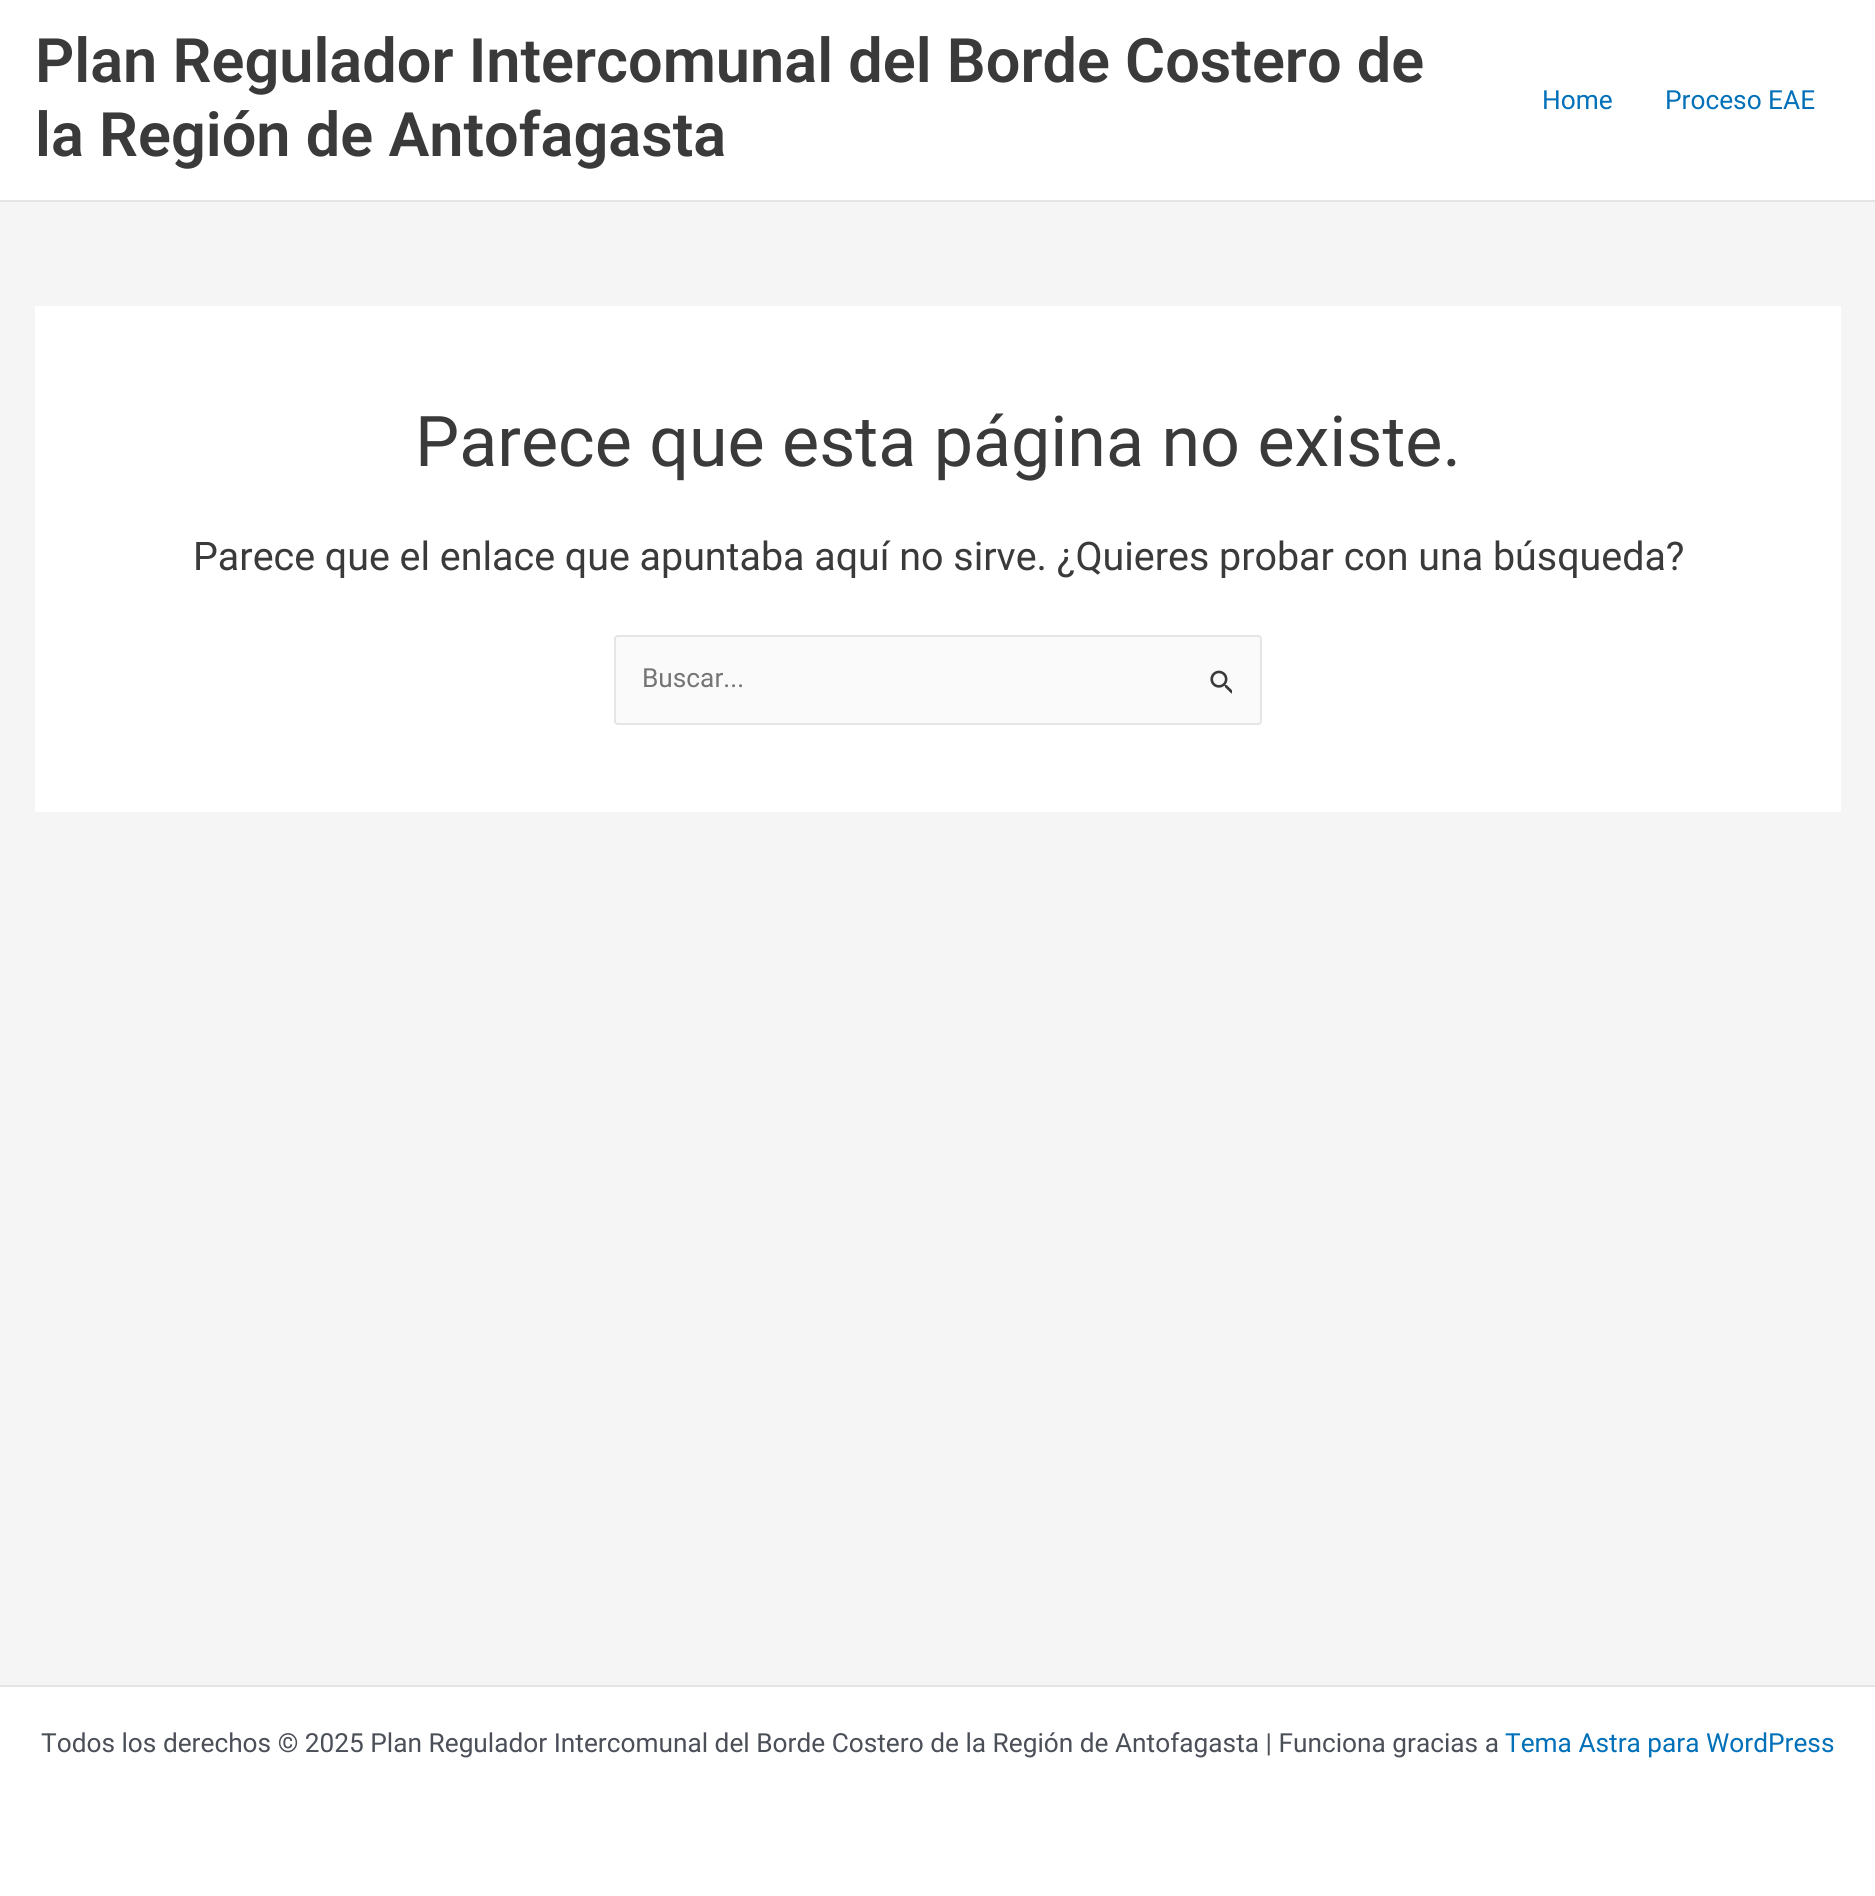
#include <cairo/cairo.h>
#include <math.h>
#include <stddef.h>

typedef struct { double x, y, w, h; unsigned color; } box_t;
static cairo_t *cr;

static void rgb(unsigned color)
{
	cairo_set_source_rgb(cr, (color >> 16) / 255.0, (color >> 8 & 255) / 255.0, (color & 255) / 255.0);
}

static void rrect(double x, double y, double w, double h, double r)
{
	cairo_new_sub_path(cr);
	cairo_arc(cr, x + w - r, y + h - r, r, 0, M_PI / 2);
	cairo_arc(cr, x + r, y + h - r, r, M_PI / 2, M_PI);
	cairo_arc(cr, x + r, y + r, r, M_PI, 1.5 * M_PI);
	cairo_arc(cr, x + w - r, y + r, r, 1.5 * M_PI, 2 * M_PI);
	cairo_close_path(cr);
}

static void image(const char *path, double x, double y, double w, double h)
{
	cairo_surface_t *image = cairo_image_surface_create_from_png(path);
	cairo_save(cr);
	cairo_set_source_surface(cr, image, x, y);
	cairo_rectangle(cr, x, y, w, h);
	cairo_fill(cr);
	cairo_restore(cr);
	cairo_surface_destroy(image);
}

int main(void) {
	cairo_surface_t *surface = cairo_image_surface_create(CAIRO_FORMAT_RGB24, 1875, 1896);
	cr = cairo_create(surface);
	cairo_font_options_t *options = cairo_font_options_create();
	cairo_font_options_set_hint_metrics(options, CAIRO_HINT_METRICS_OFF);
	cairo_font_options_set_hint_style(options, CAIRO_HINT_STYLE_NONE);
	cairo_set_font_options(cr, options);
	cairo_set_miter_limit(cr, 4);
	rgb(0xf5f5f5);
	cairo_paint(cr);
	{
		static const box_t items[] = {
			{0, 0, 1875, 200, 0xffffff},
			{0, 200, 1875, 2, 0xe5e5e5},
			{35, 306, 1806, 506, 0xffffff},
		};
		for (size_t i = 0; i < sizeof items / sizeof *items; i++) {
			rgb(items[i].color);
			cairo_rectangle(cr, items[i].x, items[i].y, items[i].w, items[i].h);
			cairo_fill(cr);
		}
	}
	rgb(0xfafafa);
	rrect(615, 636, 646, 88, 3);
	cairo_fill_preserve(cr);
	rgb(0xe5e5e5);
	cairo_stroke(cr);
	image("img/1.png", 1210, 670, 22, 24);
	rgb(0xffffff);
	cairo_rectangle(cr, 0, 1687, 1875, 209);
	cairo_fill(cr);
	rgb(0xe5e5e5);
	cairo_rectangle(cr, 0, 1685, 1875, 2);
	cairo_fill(cr);
	cairo_select_font_face(cr, "Roboto SemiBold", CAIRO_FONT_SLANT_NORMAL, CAIRO_FONT_WEIGHT_NORMAL);
	cairo_set_font_size(cr, 61.25);
	rgb(0x3a3a3a);
	cairo_move_to(cr, 35, 82);
	cairo_show_text(cr, "Plan Regulador Intercomunal del Borde Costero de");
	cairo_move_to(cr, 35, 156);
	cairo_show_text(cr, "la Región de Antofagasta");
	cairo_select_font_face(cr, "Roboto", CAIRO_FONT_SLANT_NORMAL, CAIRO_FONT_WEIGHT_NORMAL);
	cairo_set_font_size(cr, 26.25);
	rgb(0x0170b9);
	cairo_move_to(cr, 1542, 109);
	cairo_show_text(cr, "Home");
	cairo_move_to(cr, 1665, 109);
	cairo_show_text(cr, "Proceso EAE");
	cairo_set_font_size(cr, 70);
	rgb(0x3a3a3a);
	cairo_move_to(cr, 415, 466);
	cairo_show_text(cr, "Parece que esta página no existe.");
	cairo_set_font_size(cr, 39.4);
	cairo_move_to(cr, 193, 570);
	cairo_show_text(cr, "Parece que el enlace que apuntaba aquí no sirve. ¿Quieres probar con una búsqueda?");
	cairo_set_font_size(cr, 26.25);
	rgb(0x757575);
	cairo_move_to(cr, 642, 687);
	cairo_show_text(cr, "Buscar...");
	rgb(0x4b4f58);
	cairo_move_to(cr, 41, 1752);
	cairo_show_text(cr, "Todos los derechos © 2025 Plan Regulador Intercomunal del Borde Costero de la Región de Antofagasta | Funciona gracias a");
	rgb(0x0170b9);
	cairo_move_to(cr, 1505, 1752);
	cairo_show_text(cr, "Tema Astra para WordPress");
	cairo_surface_write_to_png(surface, "page.png");
	cairo_font_options_destroy(options);
	cairo_destroy(cr);
	cairo_surface_destroy(surface);
	return 0;
}
